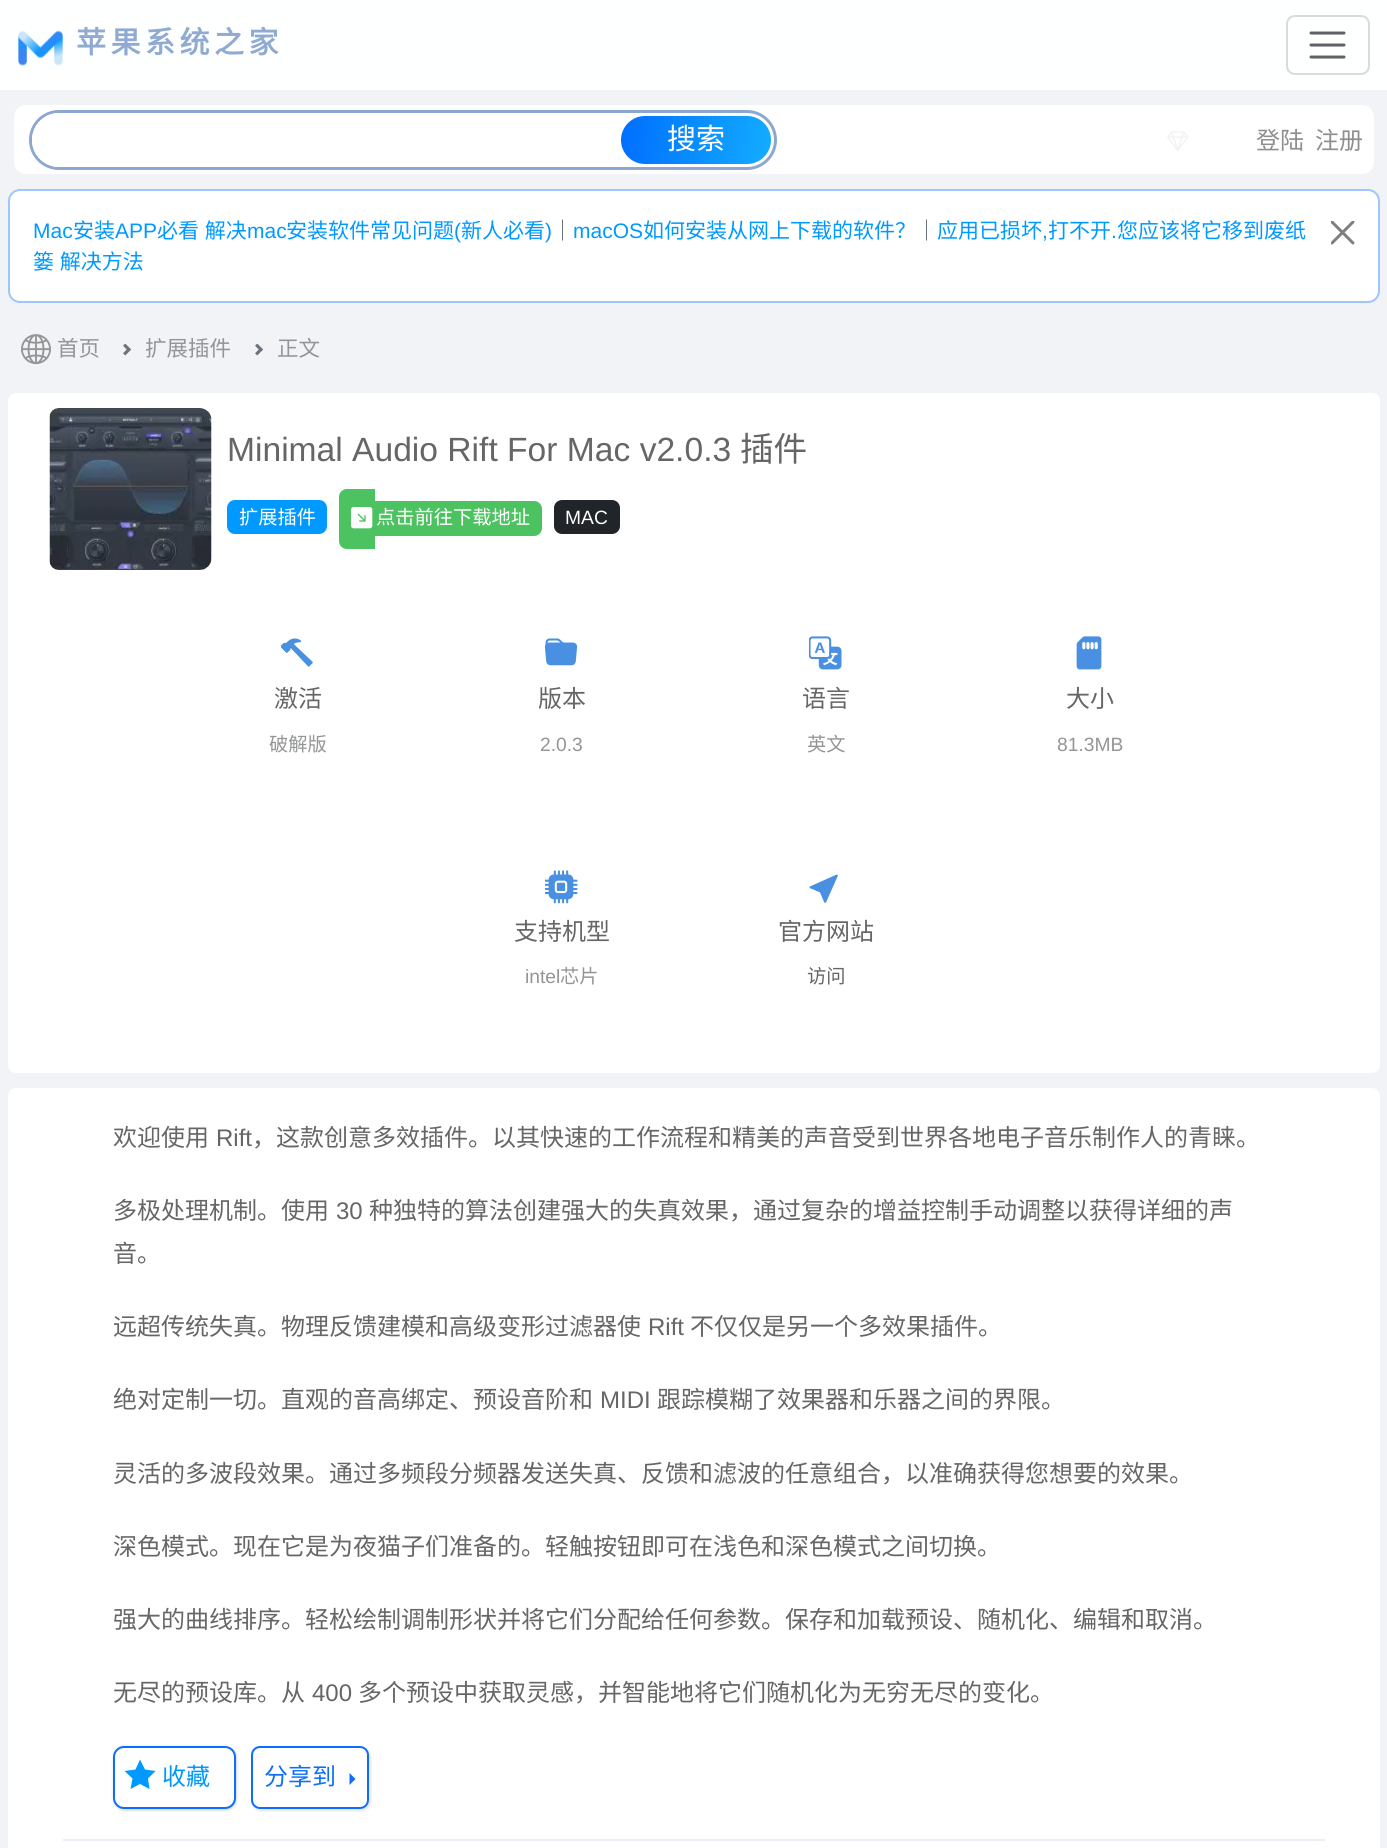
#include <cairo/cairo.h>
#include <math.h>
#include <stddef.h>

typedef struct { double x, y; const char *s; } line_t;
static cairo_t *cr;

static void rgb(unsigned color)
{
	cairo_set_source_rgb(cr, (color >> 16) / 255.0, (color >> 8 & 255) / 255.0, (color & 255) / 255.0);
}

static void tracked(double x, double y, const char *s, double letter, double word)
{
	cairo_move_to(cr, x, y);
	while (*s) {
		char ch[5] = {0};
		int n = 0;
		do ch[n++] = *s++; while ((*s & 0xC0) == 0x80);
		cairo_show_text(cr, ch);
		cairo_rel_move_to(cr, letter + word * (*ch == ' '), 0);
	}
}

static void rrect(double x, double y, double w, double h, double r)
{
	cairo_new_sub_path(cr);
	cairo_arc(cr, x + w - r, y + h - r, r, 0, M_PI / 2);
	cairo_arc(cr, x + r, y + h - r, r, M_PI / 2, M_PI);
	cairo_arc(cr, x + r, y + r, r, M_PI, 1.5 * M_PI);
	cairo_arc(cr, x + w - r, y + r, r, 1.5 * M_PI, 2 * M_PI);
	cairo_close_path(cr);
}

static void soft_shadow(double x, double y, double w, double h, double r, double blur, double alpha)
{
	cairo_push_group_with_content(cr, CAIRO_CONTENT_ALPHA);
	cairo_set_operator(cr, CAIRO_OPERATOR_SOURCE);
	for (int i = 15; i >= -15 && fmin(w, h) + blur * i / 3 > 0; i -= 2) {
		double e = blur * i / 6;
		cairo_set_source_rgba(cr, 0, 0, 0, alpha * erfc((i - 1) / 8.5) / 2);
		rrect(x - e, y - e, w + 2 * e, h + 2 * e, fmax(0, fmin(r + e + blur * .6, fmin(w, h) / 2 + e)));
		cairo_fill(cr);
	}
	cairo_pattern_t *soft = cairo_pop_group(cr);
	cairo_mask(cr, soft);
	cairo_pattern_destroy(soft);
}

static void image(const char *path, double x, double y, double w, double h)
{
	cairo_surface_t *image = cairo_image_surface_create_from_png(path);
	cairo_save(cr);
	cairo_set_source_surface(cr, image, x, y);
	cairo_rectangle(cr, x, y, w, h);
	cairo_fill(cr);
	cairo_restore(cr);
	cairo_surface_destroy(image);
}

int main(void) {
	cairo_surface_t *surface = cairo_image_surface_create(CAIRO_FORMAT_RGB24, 1387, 1848);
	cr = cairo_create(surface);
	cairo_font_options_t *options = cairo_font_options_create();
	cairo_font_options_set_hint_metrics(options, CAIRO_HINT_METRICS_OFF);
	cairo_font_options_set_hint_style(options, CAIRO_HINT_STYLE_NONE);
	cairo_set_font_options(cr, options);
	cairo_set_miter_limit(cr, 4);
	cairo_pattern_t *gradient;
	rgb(0xf1f3f7);
	cairo_paint(cr);
	rgb(0xfeffff);
	cairo_rectangle(cr, 0, 0, 1387, 90);
	cairo_fill(cr);
	image("img/1.png", 18, 30, 45, 36);
	rrect(1287, 16, 82, 58, 8);
	rgb(0xd9dada);
	cairo_stroke(cr);
	cairo_new_path(cr);
	cairo_move_to(cr, 1311, 33);
	cairo_line_to(cr, 1344, 33);
	cairo_move_to(cr, 1311, 45);
	cairo_line_to(cr, 1344, 45);
	cairo_move_to(cr, 1311, 57);
	cairo_line_to(cr, 1344, 57);
	rgb(0x5e6265);
	cairo_set_line_width(cr, 3);
	cairo_set_line_cap(cr, CAIRO_LINE_CAP_ROUND);
	cairo_stroke(cr);
	rgb(0xffffff);
	rrect(14, 105, 1360, 69, 12);
	cairo_fill(cr);
	rrect(30.5, 111.5, 745, 57, 28.5);
	rgb(0x8ca7d0);
	cairo_set_line_cap(cr, CAIRO_LINE_CAP_BUTT);
	cairo_stroke(cr);
	rgb(0xffffff);
	rrect(32, 113, 589, 54, 27);
	cairo_fill(cr);
	gradient = cairo_pattern_create_linear(619, 130, 773, 149);
	cairo_pattern_add_color_stop_rgba(gradient, 0, 0, 0.431, 1, 1);
	cairo_pattern_add_color_stop_rgba(gradient, 1, 0.075, 0.678, 1, 1);
	cairo_set_source(cr, gradient);
	cairo_pattern_destroy(gradient);
	rrect(621, 116, 150, 48, 24);
	cairo_fill(cr);
	image("img/2.png", 1167, 131, 21, 20);
	rgb(0xffffff);
	rrect(9, 190, 1370, 112, 11);
	cairo_fill_preserve(cr);
	rgb(0x9ec5fe);
	cairo_set_line_width(cr, 2);
	cairo_stroke(cr);
	image("img/3.png", 1331, 221, 24, 24);
	image("img/4.png", 21, 334, 30, 31);
	image("img/5.png", 123, 344, 9, 12);
	image("img/5.png", 255, 344, 9, 12);
	rgb(0xffffff);
	rrect(8, 393, 1372, 680, 8);
	cairo_fill(cr);
	image("img/6.png", 49, 408, 163, 162);
	rgb(0x0099ff);
	rrect(227, 500, 100, 34, 8);
	cairo_fill(cr);
	rgb(0x4cc261);
	cairo_new_path(cr);
	cairo_move_to(cr, 347, 489);
	cairo_line_to(cr, 375, 489);
	cairo_line_to(cr, 375, 549);
	cairo_line_to(cr, 347, 549);
	cairo_curve_to(cr, 342.5, 549, 339, 545.5, 339, 541);
	cairo_line_to(cr, 339, 497);
	cairo_curve_to(cr, 339, 492.5, 342.5, 489, 347, 489);
	cairo_close_path(cr);
	cairo_fill(cr);
	image("img/7.png", 351, 507, 22, 22);
	cairo_new_path(cr);
	cairo_move_to(cr, 375, 501);
	cairo_line_to(cr, 534, 501);
	cairo_curve_to(cr, 538.5, 501, 542, 504.5, 542, 509);
	cairo_line_to(cr, 542, 528);
	cairo_curve_to(cr, 542, 532.5, 538.5, 536, 534, 536);
	cairo_line_to(cr, 375, 536);
	cairo_close_path(cr);
	cairo_fill(cr);
	rgb(0x212529);
	rrect(554, 500, 66, 34, 8);
	cairo_fill(cr);
	image("img/8.png", 281, 638, 32, 29);
	image("img/9.png", 545, 638, 33, 28);
	image("img/10.png", 809, 636, 33, 34);
	image("img/11.png", 1076, 636, 26, 34);
	image("img/12.png", 545, 870, 33, 34);
	image("img/13.png", 809, 874, 29, 29);
	rgb(0xffffff);
	rrect(8, 1088, 1372, 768, 8);
	cairo_fill(cr);
	rgb(0x000000);
	soft_shadow(114, 1748, 123, 63, 11, 1, 0.1);
	soft_shadow(113, 1746, 123, 63, 11, 1.5, 0.1);
	rgb(0xffffff);
	rrect(114, 1747, 121, 61, 10);
	cairo_fill_preserve(cr);
	rgb(0x0d6efd);
	cairo_stroke(cr);
	rgb(0x0099ff);
	cairo_new_path(cr);
	cairo_move_to(cr, 155.5, 1771);
	cairo_line_to(cr, 145, 1769.5);
	cairo_line_to(cr, 140, 1759.5);
	cairo_line_to(cr, 135.5, 1769.5);
	cairo_line_to(cr, 124.5, 1771);
	cairo_line_to(cr, 132.5, 1778.5);
	cairo_line_to(cr, 130.5, 1789);
	cairo_line_to(cr, 140, 1784);
	cairo_line_to(cr, 149.5, 1789);
	cairo_line_to(cr, 148, 1778.5);
	cairo_close_path(cr);
	cairo_fill(cr);
	cairo_save(cr);
	cairo_set_fill_rule(cr, CAIRO_FILL_RULE_EVEN_ODD);
	cairo_new_path(cr);
	cairo_move_to(cr, 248, 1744);
	cairo_line_to(cr, 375, 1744);
	cairo_line_to(cr, 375, 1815);
	cairo_line_to(cr, 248, 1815);
	cairo_close_path(cr);
	cairo_move_to(cr, 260, 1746);
	cairo_line_to(cr, 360, 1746);
	cairo_curve_to(cr, 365, 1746, 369, 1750, 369, 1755);
	cairo_line_to(cr, 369, 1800);
	cairo_curve_to(cr, 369, 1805, 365, 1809, 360, 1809);
	cairo_line_to(cr, 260, 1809);
	cairo_curve_to(cr, 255, 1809, 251, 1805, 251, 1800);
	cairo_line_to(cr, 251, 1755);
	cairo_curve_to(cr, 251, 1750, 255, 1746, 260, 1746);
	cairo_close_path(cr);
	cairo_clip(cr);
	rgb(0x000000);
	soft_shadow(252, 1748, 119, 63, 9, 1, 0.1);
	cairo_restore(cr);
	rrect(252, 1747, 116, 61, 8);
	rgb(0x0d6efd);
	cairo_stroke(cr);
	cairo_new_path(cr);
	cairo_move_to(cr, 349.5, 1785);
	cairo_line_to(cr, 349.5, 1773);
	cairo_line_to(cr, 355.5, 1779);
	cairo_close_path(cr);
	cairo_fill(cr);
	rgb(0xebeef5);
	cairo_rectangle(cr, 63, 1839, 1262, 2);
	cairo_fill(cr);
	cairo_select_font_face(cr, "Noto Sans CJK SC", CAIRO_FONT_SLANT_NORMAL, CAIRO_FONT_WEIGHT_BOLD);
	cairo_set_font_size(cr, 30);
	rgb(0x90aad2);
	tracked(76, 53, "苹果系统之家", 4.5, 0);
	cairo_select_font_face(cr, "Noto Sans CJK SC", CAIRO_FONT_SLANT_NORMAL, CAIRO_FONT_WEIGHT_NORMAL);
	cairo_set_font_size(cr, 29);
	rgb(0xffffff);
	cairo_move_to(cr, 667, 149);
	cairo_show_text(cr, "搜索");
	cairo_set_font_size(cr, 24);
	rgb(0x8e8e8e);
	cairo_move_to(cr, 1256, 149);
	cairo_show_text(cr, "登陆");
	cairo_move_to(cr, 1315, 149);
	cairo_show_text(cr, "注册");
	cairo_select_font_face(cr, "Liberation Sans", CAIRO_FONT_SLANT_NORMAL, CAIRO_FONT_WEIGHT_NORMAL);
	cairo_set_font_size(cr, 21);
	rgb(0x0099ff);
	cairo_move_to(cr, 33, 238);
	cairo_show_text(cr, "Mac");
	cairo_select_font_face(cr, "Noto Sans CJK SC", CAIRO_FONT_SLANT_NORMAL, CAIRO_FONT_WEIGHT_NORMAL);
	cairo_move_to(cr, 73, 238);
	cairo_show_text(cr, "安装");
	cairo_select_font_face(cr, "Liberation Sans", CAIRO_FONT_SLANT_NORMAL, CAIRO_FONT_WEIGHT_NORMAL);
	cairo_move_to(cr, 115, 238);
	cairo_show_text(cr, "APP");
	cairo_select_font_face(cr, "Noto Sans CJK SC", CAIRO_FONT_SLANT_NORMAL, CAIRO_FONT_WEIGHT_NORMAL);
	tracked(157, 238, "必看 解决", 0, 1);
	cairo_select_font_face(cr, "Liberation Sans", CAIRO_FONT_SLANT_NORMAL, CAIRO_FONT_WEIGHT_NORMAL);
	cairo_move_to(cr, 247, 238);
	cairo_show_text(cr, "mac");
	cairo_select_font_face(cr, "Noto Sans CJK SC", CAIRO_FONT_SLANT_NORMAL, CAIRO_FONT_WEIGHT_NORMAL);
	cairo_move_to(cr, 286, 238);
	cairo_show_text(cr, "安装软件常见问题");
	cairo_select_font_face(cr, "Liberation Sans", CAIRO_FONT_SLANT_NORMAL, CAIRO_FONT_WEIGHT_NORMAL);
	cairo_move_to(cr, 454, 238);
	cairo_show_text(cr, "(");
	cairo_select_font_face(cr, "Noto Sans CJK SC", CAIRO_FONT_SLANT_NORMAL, CAIRO_FONT_WEIGHT_NORMAL);
	cairo_move_to(cr, 461, 238);
	cairo_show_text(cr, "新人必看");
	cairo_select_font_face(cr, "Liberation Sans", CAIRO_FONT_SLANT_NORMAL, CAIRO_FONT_WEIGHT_NORMAL);
	cairo_move_to(cr, 545, 238);
	cairo_show_text(cr, ")");
	cairo_select_font_face(cr, "Noto Sans CJK SC", CAIRO_FONT_SLANT_NORMAL, CAIRO_FONT_WEIGHT_NORMAL);
	rgb(0x565d65);
	cairo_move_to(cr, 552, 238);
	cairo_show_text(cr, "｜");
	cairo_select_font_face(cr, "Liberation Sans", CAIRO_FONT_SLANT_NORMAL, CAIRO_FONT_WEIGHT_NORMAL);
	rgb(0x0099ff);
	cairo_move_to(cr, 573, 238);
	cairo_show_text(cr, "macOS");
	cairo_select_font_face(cr, "Noto Sans CJK SC", CAIRO_FONT_SLANT_NORMAL, CAIRO_FONT_WEIGHT_NORMAL);
	cairo_move_to(cr, 643, 238);
	cairo_show_text(cr, "如何安装从网上下载的软件？");
	rgb(0x565d65);
	cairo_move_to(cr, 916, 238);
	cairo_show_text(cr, "｜");
	rgb(0x0099ff);
	cairo_move_to(cr, 937, 238);
	cairo_show_text(cr, "应用已损坏");
	cairo_select_font_face(cr, "Liberation Sans", CAIRO_FONT_SLANT_NORMAL, CAIRO_FONT_WEIGHT_NORMAL);
	cairo_move_to(cr, 1042, 238);
	cairo_show_text(cr, ",");
	cairo_select_font_face(cr, "Noto Sans CJK SC", CAIRO_FONT_SLANT_NORMAL, CAIRO_FONT_WEIGHT_NORMAL);
	cairo_move_to(cr, 1048, 238);
	cairo_show_text(cr, "打不开");
	cairo_select_font_face(cr, "Liberation Sans", CAIRO_FONT_SLANT_NORMAL, CAIRO_FONT_WEIGHT_NORMAL);
	cairo_move_to(cr, 1111, 238);
	cairo_show_text(cr, ".");
	cairo_select_font_face(cr, "Noto Sans CJK SC", CAIRO_FONT_SLANT_NORMAL, CAIRO_FONT_WEIGHT_NORMAL);
	cairo_move_to(cr, 1117, 238);
	cairo_show_text(cr, "您应该将它移到废纸");
	tracked(33, 269, "篓 解决方法", 0, 1);
	cairo_set_font_size(cr, 21.5);
	rgb(0x949596);
	{
		static const line_t items[] = {
			{57, 356, "首页"},
			{145, 356, "扩展插件"},
			{277, 356, "正文"},
		};
		for (size_t i = 0; i < sizeof items / sizeof *items; i++) {
			cairo_move_to(cr, items[i].x, items[i].y);
			cairo_show_text(cr, items[i].s);
		}
	}
	cairo_select_font_face(cr, "Liberation Sans", CAIRO_FONT_SLANT_NORMAL, CAIRO_FONT_WEIGHT_NORMAL);
	cairo_set_font_size(cr, 33.6);
	rgb(0x666666);
	cairo_move_to(cr, 227, 461);
	cairo_show_text(cr, "Minimal Audio Rift For Mac v2.0.3");
	cairo_select_font_face(cr, "Noto Sans CJK SC", CAIRO_FONT_SLANT_NORMAL, CAIRO_FONT_WEIGHT_NORMAL);
	cairo_move_to(cr, 740, 461);
	cairo_show_text(cr, "插件");
	cairo_set_font_size(cr, 19.25);
	rgb(0xffffff);
	cairo_move_to(cr, 239, 524);
	cairo_show_text(cr, "扩展插件");
	cairo_move_to(cr, 376, 524);
	cairo_show_text(cr, "点击前往下载地址");
	cairo_select_font_face(cr, "Liberation Sans", CAIRO_FONT_SLANT_NORMAL, CAIRO_FONT_WEIGHT_NORMAL);
	cairo_move_to(cr, 565, 524);
	cairo_show_text(cr, "MAC");
	cairo_select_font_face(cr, "Noto Sans CJK SC", CAIRO_FONT_SLANT_NORMAL, CAIRO_FONT_WEIGHT_NORMAL);
	cairo_set_font_size(cr, 24);
	rgb(0x666666);
	cairo_move_to(cr, 274, 707);
	cairo_show_text(cr, "激活");
	cairo_set_font_size(cr, 19.25);
	rgb(0x949596);
	cairo_move_to(cr, 269, 751);
	cairo_show_text(cr, "破解版");
	cairo_set_font_size(cr, 24);
	rgb(0x666666);
	cairo_move_to(cr, 538, 707);
	cairo_show_text(cr, "版本");
	cairo_select_font_face(cr, "Liberation Sans", CAIRO_FONT_SLANT_NORMAL, CAIRO_FONT_WEIGHT_NORMAL);
	cairo_set_font_size(cr, 19.25);
	rgb(0x949596);
	cairo_move_to(cr, 540, 751);
	cairo_show_text(cr, "2.0.3");
	cairo_select_font_face(cr, "Noto Sans CJK SC", CAIRO_FONT_SLANT_NORMAL, CAIRO_FONT_WEIGHT_NORMAL);
	cairo_set_font_size(cr, 24);
	rgb(0x666666);
	cairo_move_to(cr, 802, 707);
	cairo_show_text(cr, "语言");
	cairo_set_font_size(cr, 19.25);
	rgb(0x949596);
	cairo_move_to(cr, 807, 751);
	cairo_show_text(cr, "英文");
	cairo_set_font_size(cr, 24);
	rgb(0x666666);
	cairo_move_to(cr, 1066, 707);
	cairo_show_text(cr, "大小");
	cairo_select_font_face(cr, "Liberation Sans", CAIRO_FONT_SLANT_NORMAL, CAIRO_FONT_WEIGHT_NORMAL);
	cairo_set_font_size(cr, 19.25);
	rgb(0x949596);
	cairo_move_to(cr, 1057, 751);
	cairo_show_text(cr, "81.3MB");
	cairo_select_font_face(cr, "Noto Sans CJK SC", CAIRO_FONT_SLANT_NORMAL, CAIRO_FONT_WEIGHT_NORMAL);
	cairo_set_font_size(cr, 24);
	rgb(0x666666);
	cairo_move_to(cr, 514, 940);
	cairo_show_text(cr, "支持机型");
	cairo_select_font_face(cr, "Liberation Sans", CAIRO_FONT_SLANT_NORMAL, CAIRO_FONT_WEIGHT_NORMAL);
	cairo_set_font_size(cr, 19.25);
	rgb(0x949596);
	cairo_move_to(cr, 525, 983);
	cairo_show_text(cr, "intel");
	cairo_select_font_face(cr, "Noto Sans CJK SC", CAIRO_FONT_SLANT_NORMAL, CAIRO_FONT_WEIGHT_NORMAL);
	cairo_move_to(cr, 560, 983);
	cairo_show_text(cr, "芯片");
	cairo_set_font_size(cr, 24);
	rgb(0x666666);
	cairo_move_to(cr, 778, 940);
	cairo_show_text(cr, "官方网站");
	cairo_set_font_size(cr, 19.25);
	cairo_move_to(cr, 807, 983);
	cairo_show_text(cr, "访问");
	cairo_set_font_size(cr, 24);
	cairo_move_to(cr, 113, 1146);
	cairo_show_text(cr, "欢迎使用");
	cairo_select_font_face(cr, "Liberation Sans", CAIRO_FONT_SLANT_NORMAL, CAIRO_FONT_WEIGHT_NORMAL);
	cairo_move_to(cr, 216, 1146);
	cairo_show_text(cr, "Rift");
	cairo_select_font_face(cr, "Noto Sans CJK SC", CAIRO_FONT_SLANT_NORMAL, CAIRO_FONT_WEIGHT_NORMAL);
	cairo_move_to(cr, 252, 1146);
	cairo_show_text(cr, "，这款创意多效插件。以其快速的工作流程和精美的声音受到世界各地电子音乐制作人的青睐。");
	cairo_move_to(cr, 113, 1219);
	cairo_show_text(cr, "多极处理机制。使用");
	cairo_select_font_face(cr, "Liberation Sans", CAIRO_FONT_SLANT_NORMAL, CAIRO_FONT_WEIGHT_NORMAL);
	cairo_move_to(cr, 336, 1219);
	cairo_show_text(cr, "30");
	cairo_select_font_face(cr, "Noto Sans CJK SC", CAIRO_FONT_SLANT_NORMAL, CAIRO_FONT_WEIGHT_NORMAL);
	{
		static const line_t items[] = {
			{369, 1219, "种独特的算法创建强大的失真效果，通过复杂的增益控制手动调整以获得详细的声"},
			{113, 1262, "音。"},
			{113, 1335, "远超传统失真。物理反馈建模和高级变形过滤器使"},
		};
		for (size_t i = 0; i < sizeof items / sizeof *items; i++) {
			cairo_move_to(cr, items[i].x, items[i].y);
			cairo_show_text(cr, items[i].s);
		}
	}
	cairo_select_font_face(cr, "Liberation Sans", CAIRO_FONT_SLANT_NORMAL, CAIRO_FONT_WEIGHT_NORMAL);
	cairo_move_to(cr, 648, 1335);
	cairo_show_text(cr, "Rift");
	cairo_select_font_face(cr, "Noto Sans CJK SC", CAIRO_FONT_SLANT_NORMAL, CAIRO_FONT_WEIGHT_NORMAL);
	cairo_move_to(cr, 690, 1335);
	cairo_show_text(cr, "不仅仅是另一个多效果插件。");
	cairo_move_to(cr, 113, 1408);
	cairo_show_text(cr, "绝对定制一切。直观的音高绑定、预设音阶和");
	cairo_select_font_face(cr, "Liberation Sans", CAIRO_FONT_SLANT_NORMAL, CAIRO_FONT_WEIGHT_NORMAL);
	cairo_move_to(cr, 600, 1408);
	cairo_show_text(cr, "MIDI");
	cairo_select_font_face(cr, "Noto Sans CJK SC", CAIRO_FONT_SLANT_NORMAL, CAIRO_FONT_WEIGHT_NORMAL);
	{
		static const line_t items[] = {
			{657, 1408, "跟踪模糊了效果器和乐器之间的界限。"},
			{113, 1482, "灵活的多波段效果。通过多频段分频器发送失真、反馈和滤波的任意组合，以准确获得您想要的效果。"},
			{113, 1555, "深色模式。现在它是为夜猫子们准备的。轻触按钮即可在浅色和深色模式之间切换。"},
			{113, 1628, "强大的曲线排序。轻松绘制调制形状并将它们分配给任何参数。保存和加载预设、随机化、编辑和取消。"},
			{113, 1701, "无尽的预设库。从"},
		};
		for (size_t i = 0; i < sizeof items / sizeof *items; i++) {
			cairo_move_to(cr, items[i].x, items[i].y);
			cairo_show_text(cr, items[i].s);
		}
	}
	cairo_select_font_face(cr, "Liberation Sans", CAIRO_FONT_SLANT_NORMAL, CAIRO_FONT_WEIGHT_NORMAL);
	cairo_move_to(cr, 312, 1701);
	cairo_show_text(cr, "400");
	cairo_select_font_face(cr, "Noto Sans CJK SC", CAIRO_FONT_SLANT_NORMAL, CAIRO_FONT_WEIGHT_NORMAL);
	cairo_move_to(cr, 358, 1701);
	cairo_show_text(cr, "多个预设中获取灵感，并智能地将它们随机化为无穷无尽的变化。");
	rgb(0x0099ff);
	cairo_move_to(cr, 162, 1785);
	cairo_show_text(cr, "收藏");
	rgb(0x0d6efd);
	cairo_move_to(cr, 264, 1785);
	cairo_show_text(cr, "分享到");
	cairo_surface_write_to_png(surface, "page.png");
	cairo_font_options_destroy(options);
	cairo_destroy(cr);
	cairo_surface_destroy(surface);
	return 0;
}
